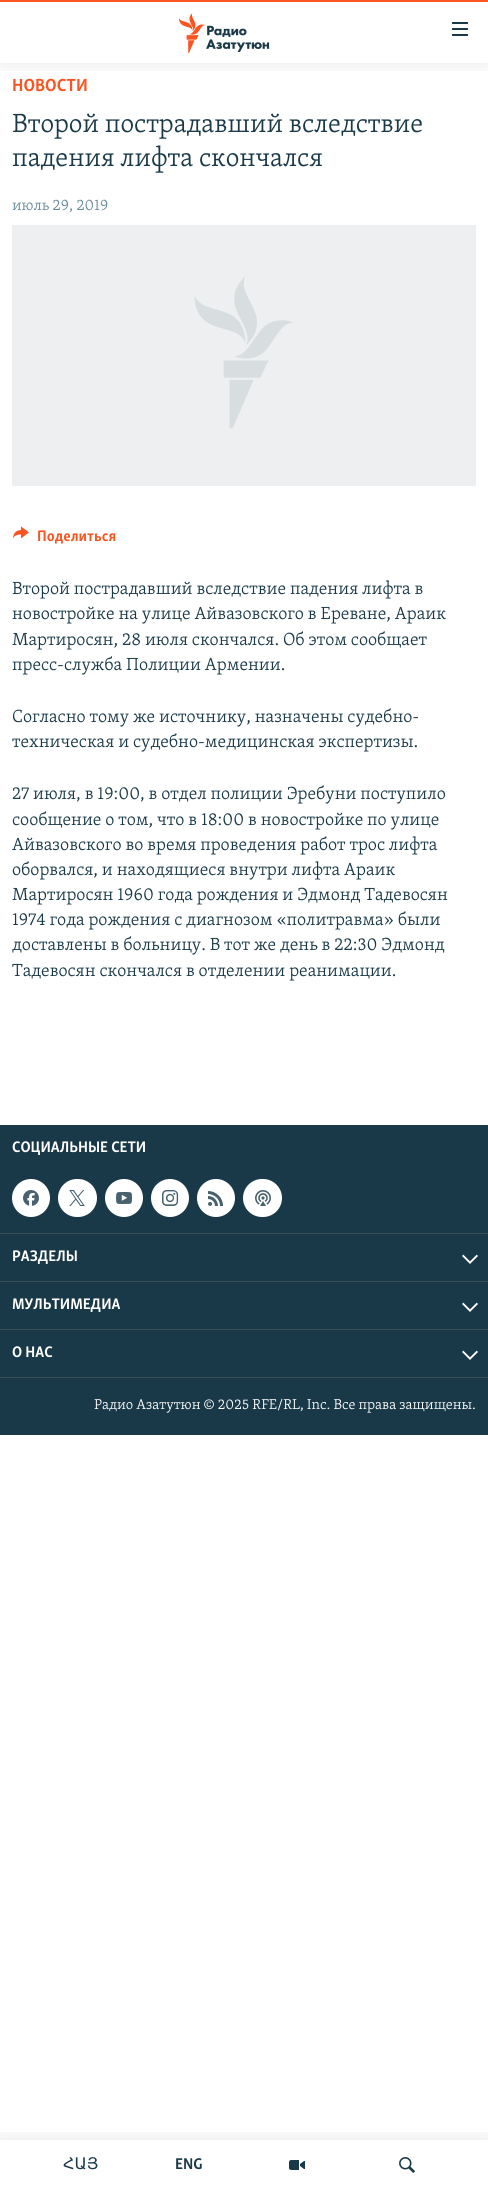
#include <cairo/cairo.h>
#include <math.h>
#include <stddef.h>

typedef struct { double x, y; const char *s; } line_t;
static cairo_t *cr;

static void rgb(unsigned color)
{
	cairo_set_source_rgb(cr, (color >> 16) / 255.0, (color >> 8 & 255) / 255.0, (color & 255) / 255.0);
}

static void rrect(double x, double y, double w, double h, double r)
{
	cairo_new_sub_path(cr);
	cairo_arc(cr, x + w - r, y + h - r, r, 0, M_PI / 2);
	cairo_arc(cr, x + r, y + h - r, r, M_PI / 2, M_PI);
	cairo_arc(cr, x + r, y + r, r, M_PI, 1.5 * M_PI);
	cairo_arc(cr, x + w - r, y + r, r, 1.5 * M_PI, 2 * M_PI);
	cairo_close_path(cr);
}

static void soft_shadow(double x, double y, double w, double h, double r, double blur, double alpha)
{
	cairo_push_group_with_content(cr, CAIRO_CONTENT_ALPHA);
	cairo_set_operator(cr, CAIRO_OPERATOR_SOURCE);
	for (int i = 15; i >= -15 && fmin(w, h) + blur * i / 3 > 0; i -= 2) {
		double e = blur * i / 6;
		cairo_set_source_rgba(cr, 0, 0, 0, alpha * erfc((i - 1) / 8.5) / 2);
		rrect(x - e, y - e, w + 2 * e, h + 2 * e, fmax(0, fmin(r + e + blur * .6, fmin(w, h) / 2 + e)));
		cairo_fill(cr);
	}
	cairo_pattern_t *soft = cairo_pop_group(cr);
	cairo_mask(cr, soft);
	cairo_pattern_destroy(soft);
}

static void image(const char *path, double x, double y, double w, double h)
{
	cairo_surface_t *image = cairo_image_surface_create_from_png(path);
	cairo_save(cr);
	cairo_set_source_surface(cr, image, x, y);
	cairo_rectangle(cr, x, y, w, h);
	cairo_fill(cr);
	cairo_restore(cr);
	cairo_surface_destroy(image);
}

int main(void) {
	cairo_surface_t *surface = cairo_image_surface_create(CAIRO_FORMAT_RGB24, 488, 2190);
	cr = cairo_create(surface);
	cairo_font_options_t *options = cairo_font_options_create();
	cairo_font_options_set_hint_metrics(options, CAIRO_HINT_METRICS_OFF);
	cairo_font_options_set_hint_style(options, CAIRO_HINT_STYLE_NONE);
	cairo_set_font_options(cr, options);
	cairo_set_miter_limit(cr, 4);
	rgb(0xffffff);
	cairo_paint(cr);
	rgb(0xedeff0);
	cairo_rectangle(cr, 12, 225, 464, 261);
	cairo_fill(cr);
	image("img/1.png", 194, 277, 99, 152);
	image("img/2.png", 13, 526, 16, 13);
	rgb(0x1a3948);
	cairo_rectangle(cr, 0, 1125, 488, 310);
	cairo_fill(cr);
	rgb(0x3e4f57);
	cairo_rectangle(cr, 0, 1377, 488, 1);
	cairo_fill(cr);
	rgb(0xffffff);
	cairo_arc(cr, 31, 1198, 19, 0, 2 * M_PI);
	cairo_fill(cr);
	image("img/3.png", 23, 1190, 16, 16);
	rrect(58, 1179, 39, 38, 19);
	cairo_fill(cr);
	image("img/4.png", 69, 1190, 16, 16);
	cairo_arc(cr, 124, 1198, 19, 0, 2 * M_PI);
	cairo_fill(cr);
	image("img/5.png", 116, 1192, 16, 12);
	cairo_arc(cr, 170, 1198, 19, 0, 2 * M_PI);
	cairo_fill(cr);
	image("img/6.png", 162, 1190, 17, 16);
	cairo_arc(cr, 216, 1198, 19, 0, 2 * M_PI);
	cairo_fill(cr);
	image("img/7.png", 208, 1191, 15, 15);
	rrect(243, 1179, 39, 38, 19);
	cairo_fill(cr);
	image("img/8.png", 255, 1190, 16, 16);
	rgb(0x3e4f57);
	cairo_rectangle(cr, 0, 1233, 488, 1);
	cairo_fill(cr);
	image("img/9.png", 462, 1254, 16, 10);
	cairo_rectangle(cr, 0, 1281, 488, 1);
	cairo_fill(cr);
	image("img/9.png", 462, 1302, 16, 10);
	cairo_rectangle(cr, 0, 1329, 488, 1);
	cairo_fill(cr);
	image("img/9.png", 462, 1350, 16, 10);
	cairo_save(cr);
	cairo_rectangle(cr, 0, 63, 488, 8);
	cairo_clip(cr);
	rgb(0x000000);
	soft_shadow(0, 0, 488, 63, 0, 10, 0.1);
	cairo_restore(cr);
	rgb(0xfa5420);
	cairo_rectangle(cr, 0, 0, 488, 2);
	cairo_fill(cr);
	image("img/10.png", 179, 13, 91, 40);
	image("img/11.png", 452, 22, 16, 14);
	cairo_save(cr);
	cairo_rectangle(cr, 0, 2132, 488, 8);
	cairo_clip(cr);
	rgb(0x000000);
	soft_shadow(0, 2140, 488, 50, 0, 10, 0.1);
	cairo_restore(cr);
	image("img/12.png", 289, 2160, 16, 10);
	image("img/13.png", 399, 2157, 16, 16);
	cairo_select_font_face(cr, "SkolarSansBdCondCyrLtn", CAIRO_FONT_SLANT_NORMAL, CAIRO_FONT_WEIGHT_BOLD);
	cairo_set_font_size(cr, 18);
	cairo_move_to(cr, 12, 91);
	cairo_show_text(cr, "НОВОСТИ");
	cairo_select_font_face(cr, "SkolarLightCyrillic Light", CAIRO_FONT_SLANT_NORMAL, CAIRO_FONT_WEIGHT_NORMAL);
	cairo_set_font_size(cr, 27);
	rgb(0x1a3948);
	cairo_move_to(cr, 12, 132);
	cairo_show_text(cr, "Второй пострадавший вследствие");
	cairo_move_to(cr, 12, 166);
	cairo_show_text(cr, "падения лифта скончался");
	cairo_set_font_size(cr, 15.75);
	rgb(0x678a9b);
	cairo_move_to(cr, 12, 210);
	cairo_show_text(cr, "июль 29, 2019");
	cairo_select_font_face(cr, "SkolarSansBdCondCyrLtn", CAIRO_FONT_SLANT_NORMAL, CAIRO_FONT_WEIGHT_BOLD);
	rgb(0xfa5420);
	cairo_move_to(cr, 37, 541);
	cairo_show_text(cr, "Поделиться");
	cairo_select_font_face(cr, "SkolarLightCyrillic Light", CAIRO_FONT_SLANT_NORMAL, CAIRO_FONT_WEIGHT_NORMAL);
	cairo_set_font_size(cr, 18);
	rgb(0x1a3948);
	{
		static const line_t items[] = {
			{12, 594, "Второй пострадавший вследствие падения лифта в"},
			{12, 619, "новостройке на улице Айвазовского в Ереване, Араик"},
			{12, 645, "Мартиросян, 28 июля скончался. Об этом сообщает"},
			{12, 670, "пресс-служба Полиции Армении."},
			{12, 722, "Согласно тому же источнику, назначены судебно-"},
			{12, 747, "техническая и судебно-медицинская экспертизы."},
			{12, 799, "27 июля, в 19:00, в отдел полиции Эребуни поступило"},
			{12, 825, "сообщение о том, что в 18:00 в новостройке по улице"},
			{12, 850, "Айвазовского во время проведения работ трос лифта"},
			{12, 875, "оборвался, и находящиеся внутри лифта Араик"},
			{12, 900, "Мартиросян 1960 года рождения и Эдмонд Тадевосян"},
			{12, 925, "1974 года рождения с диагнозом «политравма» были"},
			{12, 950, "доставлены в больницу. В тот же день в 22:30 Эдмонд"},
			{12, 976, "Тадевосян скончался в отделении реанимации."},
		};
		for (size_t i = 0; i < sizeof items / sizeof *items; i++) {
			cairo_move_to(cr, items[i].x, items[i].y);
			cairo_show_text(cr, items[i].s);
		}
	}
	cairo_select_font_face(cr, "SkolarSansBdCondCyrLtn", CAIRO_FONT_SLANT_NORMAL, CAIRO_FONT_WEIGHT_BOLD);
	cairo_set_font_size(cr, 15.75);
	rgb(0xffffff);
	{
		static const line_t items[] = {
			{12, 1152, "СОЦИАЛЬНЫЕ СЕТИ"},
			{12, 1261, "РАЗДЕЛЫ"},
			{12, 1309, "МУЛЬТИМЕДИА"},
			{12, 1357, "О НАС"},
		};
		for (size_t i = 0; i < sizeof items / sizeof *items; i++) {
			cairo_move_to(cr, items[i].x, items[i].y);
			cairo_show_text(cr, items[i].s);
		}
	}
	cairo_select_font_face(cr, "SkolarLightCyrillic Light", CAIRO_FONT_SLANT_NORMAL, CAIRO_FONT_WEIGHT_NORMAL);
	cairo_set_font_size(cr, 14.6);
	cairo_move_to(cr, 94, 1409);
	cairo_show_text(cr, "Радио Азатутюн © 2025 RFE/RL, Inc. Все права защищены.");
	cairo_select_font_face(cr, "DejaVu Sans", CAIRO_FONT_SLANT_NORMAL, CAIRO_FONT_WEIGHT_NORMAL);
	cairo_set_font_size(cr, 16);
	rgb(0x1a3948);
	cairo_move_to(cr, 63, 2169);
	cairo_show_text(cr, "ՀԱՅ");
	cairo_select_font_face(cr, "SkolarSansBdCondCyrLtn", CAIRO_FONT_SLANT_NORMAL, CAIRO_FONT_WEIGHT_BOLD);
	cairo_move_to(cr, 175, 2169);
	cairo_show_text(cr, "ENG");
	cairo_surface_write_to_png(surface, "page.png");
	cairo_font_options_destroy(options);
	cairo_destroy(cr);
	cairo_surface_destroy(surface);
	return 0;
}
